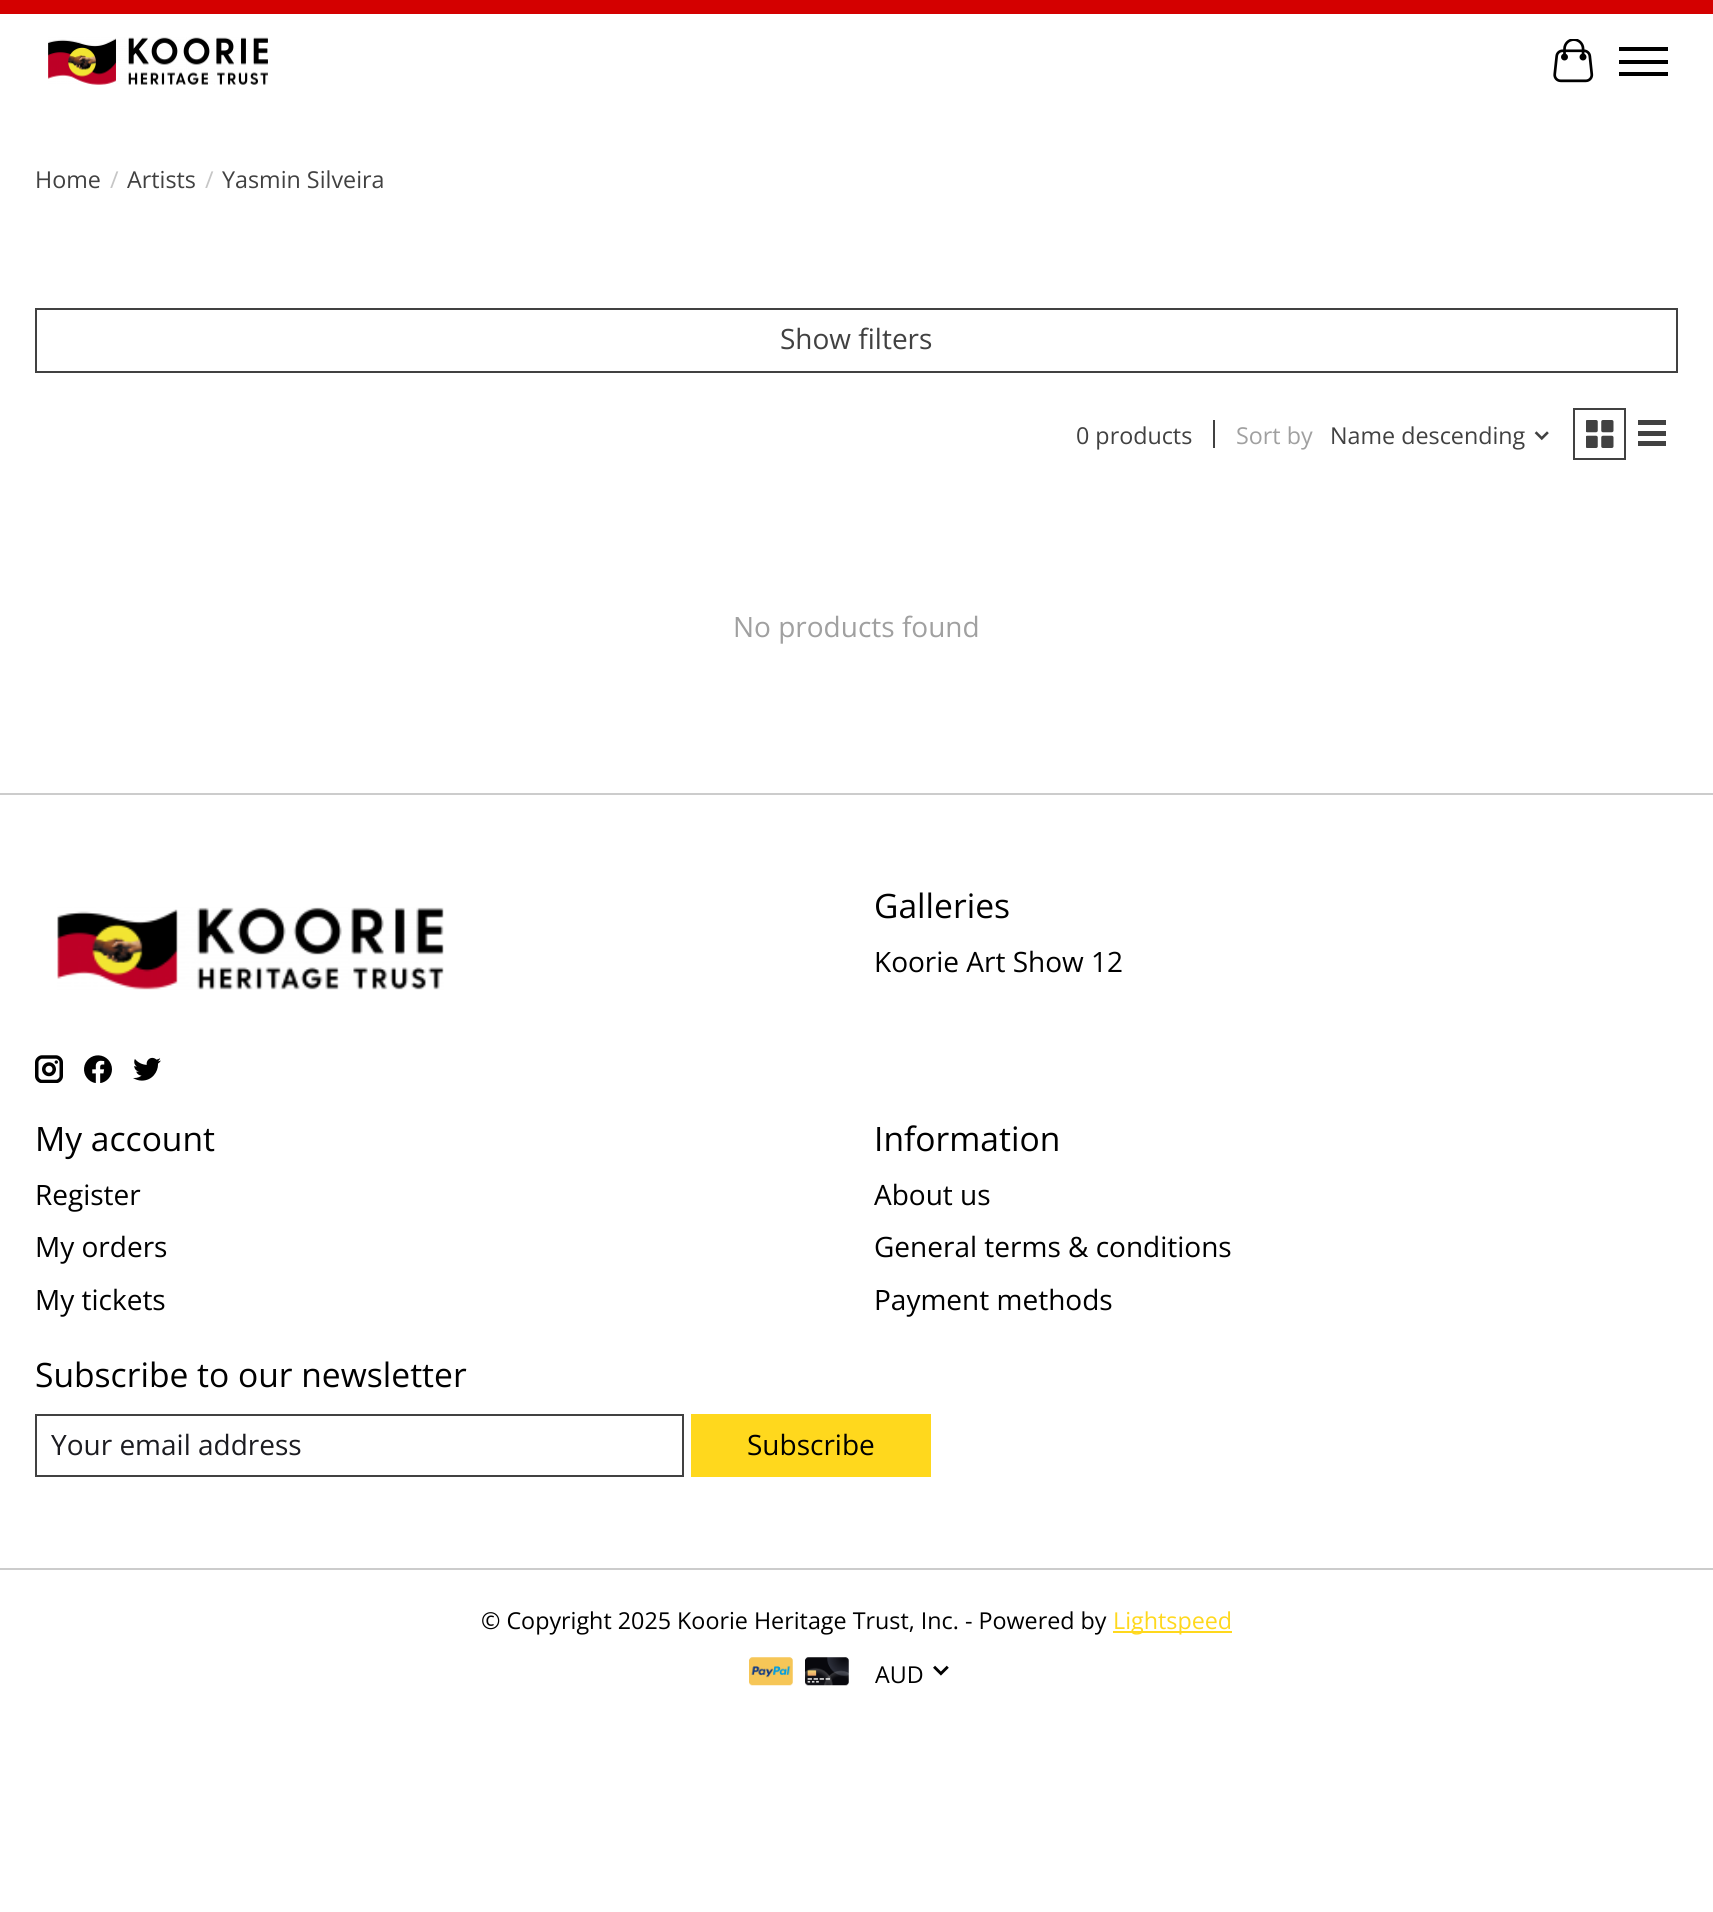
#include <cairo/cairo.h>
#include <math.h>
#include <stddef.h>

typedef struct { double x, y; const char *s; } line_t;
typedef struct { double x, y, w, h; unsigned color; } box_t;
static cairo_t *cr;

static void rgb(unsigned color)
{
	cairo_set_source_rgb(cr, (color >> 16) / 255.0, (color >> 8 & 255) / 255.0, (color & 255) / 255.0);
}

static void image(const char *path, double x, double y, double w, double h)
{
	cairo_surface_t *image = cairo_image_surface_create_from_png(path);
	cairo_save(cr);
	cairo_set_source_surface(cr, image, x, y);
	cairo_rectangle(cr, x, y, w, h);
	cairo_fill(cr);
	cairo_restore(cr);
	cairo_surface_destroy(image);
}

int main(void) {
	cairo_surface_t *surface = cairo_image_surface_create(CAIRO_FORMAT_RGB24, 1713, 1912);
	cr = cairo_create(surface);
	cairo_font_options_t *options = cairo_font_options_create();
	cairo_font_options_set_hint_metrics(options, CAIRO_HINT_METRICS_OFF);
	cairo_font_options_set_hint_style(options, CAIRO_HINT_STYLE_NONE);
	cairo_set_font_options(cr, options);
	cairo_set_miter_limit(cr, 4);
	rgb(0xffffff);
	cairo_paint(cr);
	rgb(0xd40000);
	cairo_rectangle(cr, 0, 0, 1713, 14);
	cairo_fill(cr);
	image("img/1.png", 48, 37, 220, 48);
	image("img/2.png", 1553, 39, 41, 44);
	{
		static const box_t items[] = {
			{1619, 60, 49, 4, 0x000000},
			{1619, 47, 49, 4, 0x000000},
			{1619, 72, 49, 4, 0x000000},
		};
		for (size_t i = 0; i < sizeof items / sizeof *items; i++) {
			rgb(items[i].color);
			cairo_rectangle(cr, items[i].x, items[i].y, items[i].w, items[i].h);
			cairo_fill(cr);
		}
	}
	cairo_rectangle(cr, 36, 309, 1641, 63);
	rgb(0x414141);
	cairo_stroke(cr);
	cairo_rectangle(cr, 1213, 420, 2, 28);
	cairo_fill(cr);
	image("img/3.png", 1534, 431, 15, 10);
	cairo_rectangle(cr, 1574, 409, 51, 50);
	cairo_stroke(cr);
	image("img/4.png", 1586, 420, 28, 28);
	{
		static const box_t items[] = {
			{1638, 420, 28, 5, 0x414141},
			{1638, 431, 28, 5, 0x414141},
			{1638, 441, 28, 5, 0x414141},
			{0, 793, 1713, 2, 0xcccccc},
		};
		for (size_t i = 0; i < sizeof items / sizeof *items; i++) {
			rgb(items[i].color);
			cairo_rectangle(cr, items[i].x, items[i].y, items[i].w, items[i].h);
			cairo_fill(cr);
		}
	}
	image("img/5.png", 57, 907, 387, 83);
	image("img/6.png", 35, 1055, 28, 28);
	image("img/7.png", 84, 1055, 28, 28);
	image("img/8.png", 133, 1057, 28, 24);
	cairo_rectangle(cr, 36, 1415, 647, 61);
	rgb(0x414141);
	cairo_stroke(cr);
	{
		static const box_t items[] = {
			{691, 1414, 240, 63, 0xffd81d},
			{0, 1568, 1713, 2, 0xcccccc},
			{1113, 1631, 119, 2, 0xffd81d},
		};
		for (size_t i = 0; i < sizeof items / sizeof *items; i++) {
			rgb(items[i].color);
			cairo_rectangle(cr, items[i].x, items[i].y, items[i].w, items[i].h);
			cairo_fill(cr);
		}
	}
	image("img/9.png", 749, 1657, 44, 29);
	image("img/10.png", 805, 1657, 44, 29);
	image("img/11.png", 933, 1665, 16, 11);
	cairo_select_font_face(cr, "Open Sans", CAIRO_FONT_SLANT_NORMAL, CAIRO_FONT_WEIGHT_NORMAL);
	cairo_set_font_size(cr, 23.3);
	rgb(0x414141);
	cairo_move_to(cr, 35, 188);
	cairo_show_text(cr, "Home");
	rgb(0xc6c6c6);
	cairo_move_to(cr, 110, 188);
	cairo_show_text(cr, "/");
	rgb(0x414141);
	cairo_move_to(cr, 127, 188);
	cairo_show_text(cr, "Artists");
	rgb(0xc6c6c6);
	cairo_move_to(cr, 205, 188);
	cairo_show_text(cr, "/");
	rgb(0x414141);
	cairo_move_to(cr, 222, 188);
	cairo_show_text(cr, "Yasmin Silveira");
	cairo_set_font_size(cr, 28);
	cairo_move_to(cr, 780, 349);
	cairo_show_text(cr, "Show filters");
	cairo_set_font_size(cr, 23.3);
	cairo_move_to(cr, 1076, 444);
	cairo_show_text(cr, "0 products");
	rgb(0xa0a0a0);
	cairo_move_to(cr, 1236, 444);
	cairo_show_text(cr, "Sort by");
	rgb(0x414141);
	cairo_move_to(cr, 1330, 444);
	cairo_show_text(cr, "Name descending");
	cairo_set_font_size(cr, 28);
	rgb(0xa0a0a0);
	cairo_move_to(cr, 733, 637);
	cairo_show_text(cr, "No products found");
	cairo_set_font_size(cr, 33.6);
	rgb(0x000000);
	cairo_move_to(cr, 874, 918);
	cairo_show_text(cr, "Galleries");
	cairo_set_font_size(cr, 28);
	cairo_move_to(cr, 874, 972);
	cairo_show_text(cr, "Koorie Art Show 12");
	cairo_set_font_size(cr, 33.6);
	cairo_move_to(cr, 35, 1151);
	cairo_show_text(cr, "My account");
	cairo_set_font_size(cr, 28);
	{
		static const line_t items[] = {
			{35, 1205, "Register"},
			{35, 1257, "My orders"},
			{35, 1310, "My tickets"},
		};
		for (size_t i = 0; i < sizeof items / sizeof *items; i++) {
			cairo_move_to(cr, items[i].x, items[i].y);
			cairo_show_text(cr, items[i].s);
		}
	}
	cairo_set_font_size(cr, 33.6);
	cairo_move_to(cr, 874, 1151);
	cairo_show_text(cr, "Information");
	cairo_set_font_size(cr, 28);
	{
		static const line_t items[] = {
			{874, 1205, "About us"},
			{874, 1257, "General terms & conditions"},
			{874, 1310, "Payment methods"},
		};
		for (size_t i = 0; i < sizeof items / sizeof *items; i++) {
			cairo_move_to(cr, items[i].x, items[i].y);
			cairo_show_text(cr, items[i].s);
		}
	}
	cairo_set_font_size(cr, 33.6);
	cairo_move_to(cr, 35, 1387);
	cairo_show_text(cr, "Subscribe to our newsletter");
	cairo_set_font_size(cr, 28);
	rgb(0x1c1c21);
	cairo_move_to(cr, 51, 1455);
	cairo_show_text(cr, "Your email address");
	rgb(0x000000);
	cairo_move_to(cr, 747, 1455);
	cairo_show_text(cr, "Subscribe");
	cairo_set_font_size(cr, 23.3);
	cairo_move_to(cr, 481, 1629);
	cairo_show_text(cr, "© Copyright 2025 Koorie Heritage Trust, Inc. - Powered by");
	rgb(0xffd81d);
	cairo_move_to(cr, 1113, 1629);
	cairo_show_text(cr, "Lightspeed");
	rgb(0x000000);
	cairo_move_to(cr, 875, 1683);
	cairo_show_text(cr, "AUD");
	cairo_surface_write_to_png(surface, "page.png");
	cairo_font_options_destroy(options);
	cairo_destroy(cr);
	cairo_surface_destroy(surface);
	return 0;
}
